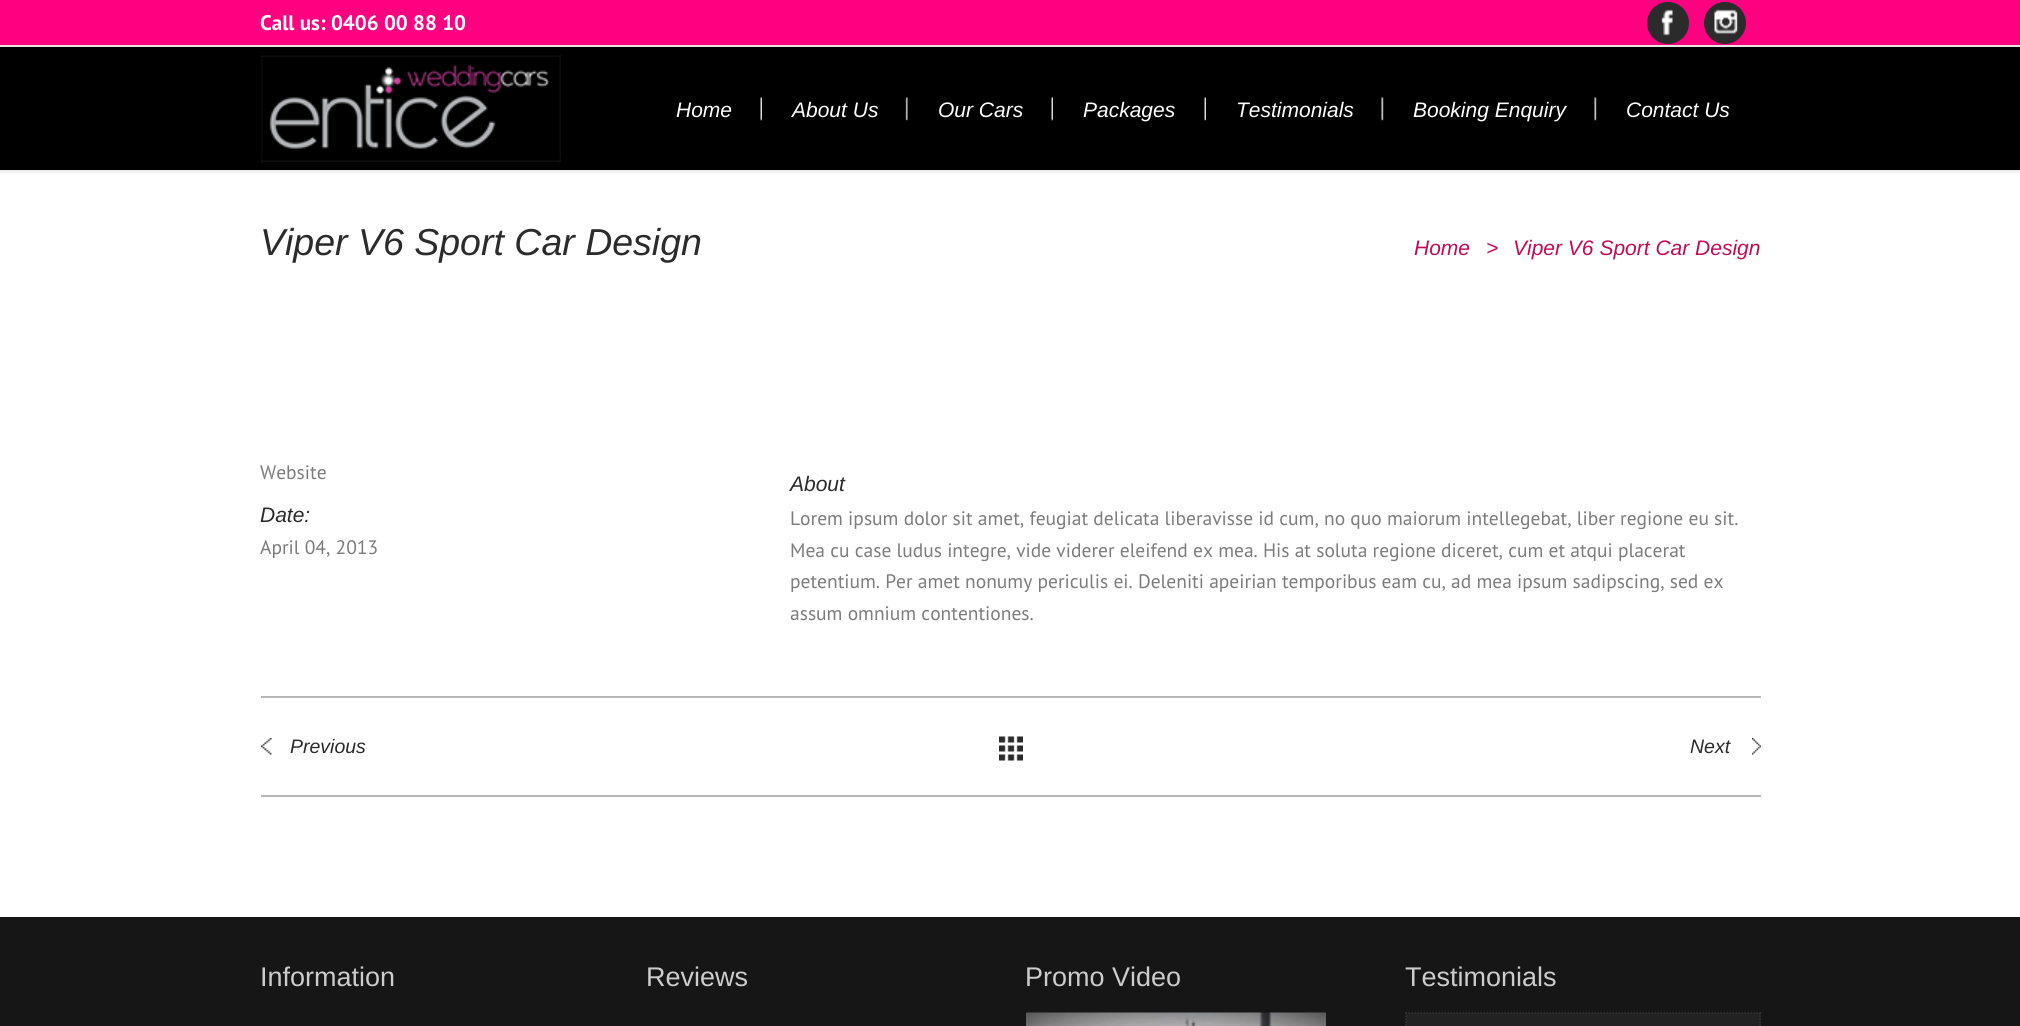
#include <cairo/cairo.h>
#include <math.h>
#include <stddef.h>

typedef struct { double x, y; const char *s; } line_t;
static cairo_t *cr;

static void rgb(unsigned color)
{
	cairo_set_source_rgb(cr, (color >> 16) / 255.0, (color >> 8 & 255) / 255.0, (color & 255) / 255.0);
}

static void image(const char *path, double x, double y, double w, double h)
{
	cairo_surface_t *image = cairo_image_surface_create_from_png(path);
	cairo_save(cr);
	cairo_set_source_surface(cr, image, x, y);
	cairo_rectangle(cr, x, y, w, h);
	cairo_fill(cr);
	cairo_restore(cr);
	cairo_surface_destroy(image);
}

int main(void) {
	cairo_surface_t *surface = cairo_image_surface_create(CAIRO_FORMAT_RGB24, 2020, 1026);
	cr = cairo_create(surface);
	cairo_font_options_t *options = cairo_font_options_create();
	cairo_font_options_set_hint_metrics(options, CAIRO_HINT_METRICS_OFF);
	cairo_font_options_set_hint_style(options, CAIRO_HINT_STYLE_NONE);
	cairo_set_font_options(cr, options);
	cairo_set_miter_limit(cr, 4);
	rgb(0xffffff);
	cairo_paint(cr);
	rgb(0xff0080);
	cairo_rectangle(cr, 0, 0, 2020, 45);
	cairo_fill(cr);
	rgb(0xe4e4e4);
	cairo_rectangle(cr, 0, 45, 2020, 2);
	cairo_fill(cr);
	rgb(0x2b2b2b);
	cairo_arc(cr, 1668, 23, 21, 0, 2 * M_PI);
	cairo_fill(cr);
	image("img/1.png", 1661, 9, 12, 27);
	cairo_arc(cr, 1725, 23, 21, 0, 2 * M_PI);
	cairo_fill(cr);
	image("img/2.png", 1714, 9, 24, 25);
	rgb(0x000000);
	cairo_rectangle(cr, 0, 47, 2020, 123);
	cairo_fill(cr);
	image("img/3.png", 261, 55, 300, 107);
	image("img/4.png", 760, 97, 2, 24);
	image("img/5.png", 905, 97, 3, 24);
	image("img/4.png", 1051, 97, 2, 24);
	image("img/6.png", 1204, 97, 2, 24);
	image("img/7.png", 1381, 97, 3, 24);
	image("img/7.png", 1594, 97, 3, 24);
	image("img/8.png", 0, 170, 2020, 4);
	rgb(0xb8b8b8);
	cairo_rectangle(cr, 261, 696, 1500, 2);
	cairo_fill(cr);
	cairo_rectangle(cr, 261, 795, 1500, 2);
	cairo_fill(cr);
	image("img/9.png", 261, 738, 11, 17);
	image("img/10.png", 999, 736, 24, 25);
	image("img/11.png", 1752, 738, 9, 17);
	rgb(0x161616);
	cairo_rectangle(cr, 0, 917, 2020, 109);
	cairo_fill(cr);
	image("img/12.png", 1026, 1012, 300, 14);
	rgb(0x222222);
	cairo_rectangle(cr, 1406, 1013, 355, 13);
	cairo_fill(cr);
	cairo_new_path(cr);
	cairo_move_to(cr, 1405.5, 1013);
	cairo_line_to(cr, 1761, 1013);
	rgb(0x333333);
	cairo_set_line_width(cr, 1.5);
	cairo_set_dash(cr, (double[]){1.5, 1.5}, 2, 0);
	cairo_stroke(cr);
	cairo_new_path(cr);
	cairo_move_to(cr, 1760, 1012.5);
	cairo_line_to(cr, 1760, 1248);
	cairo_stroke(cr);
	cairo_new_path(cr);
	cairo_move_to(cr, 1406, 1012.5);
	cairo_line_to(cr, 1406, 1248);
	cairo_stroke(cr);
	cairo_select_font_face(cr, "PT Sans", CAIRO_FONT_SLANT_NORMAL, CAIRO_FONT_WEIGHT_BOLD);
	cairo_set_font_size(cr, 21);
	rgb(0xffffff);
	cairo_move_to(cr, 260, 30);
	cairo_show_text(cr, "Call us: 0406 00 88 10");
	cairo_select_font_face(cr, "Liberation Sans", CAIRO_FONT_SLANT_ITALIC, CAIRO_FONT_WEIGHT_NORMAL);
	{
		static const line_t items[] = {
			{676, 117, "Home"},
			{792, 117, "About Us"},
			{938, 117, "Our Cars"},
			{1083, 117, "Packages"},
			{1236, 117, "Testimonials"},
			{1413, 117, "Booking Enquiry"},
			{1626, 117, "Contact Us"},
		};
		for (size_t i = 0; i < sizeof items / sizeof *items; i++) {
			cairo_move_to(cr, items[i].x, items[i].y);
			cairo_show_text(cr, items[i].s);
		}
	}
	cairo_set_font_size(cr, 37.5);
	rgb(0x2b2b2b);
	cairo_move_to(cr, 260, 255);
	cairo_show_text(cr, "Viper V6 Sport Car Design");
	cairo_set_font_size(cr, 21);
	rgb(0xc20b58);
	{
		static const line_t items[] = {
			{1414, 255, "Home"},
			{1486, 255, ">"},
			{1513, 255, "Viper V6 Sport Car Design"},
		};
		for (size_t i = 0; i < sizeof items / sizeof *items; i++) {
			cairo_move_to(cr, items[i].x, items[i].y);
			cairo_show_text(cr, items[i].s);
		}
	}
	cairo_select_font_face(cr, "PT Sans", CAIRO_FONT_SLANT_NORMAL, CAIRO_FONT_WEIGHT_NORMAL);
	cairo_set_font_size(cr, 19.5);
	rgb(0x7c7c7c);
	cairo_move_to(cr, 260, 479);
	cairo_show_text(cr, "Website");
	cairo_select_font_face(cr, "Liberation Sans", CAIRO_FONT_SLANT_ITALIC, CAIRO_FONT_WEIGHT_NORMAL);
	cairo_set_font_size(cr, 21);
	rgb(0x2b2b2b);
	cairo_move_to(cr, 260, 522);
	cairo_show_text(cr, "Date:");
	cairo_select_font_face(cr, "PT Sans", CAIRO_FONT_SLANT_NORMAL, CAIRO_FONT_WEIGHT_NORMAL);
	cairo_set_font_size(cr, 19.5);
	rgb(0x7c7c7c);
	cairo_move_to(cr, 260, 554);
	cairo_show_text(cr, "April 04, 2013");
	cairo_select_font_face(cr, "Liberation Sans", CAIRO_FONT_SLANT_ITALIC, CAIRO_FONT_WEIGHT_NORMAL);
	cairo_set_font_size(cr, 21);
	rgb(0x2b2b2b);
	cairo_move_to(cr, 790, 491);
	cairo_show_text(cr, "About");
	cairo_select_font_face(cr, "PT Sans", CAIRO_FONT_SLANT_NORMAL, CAIRO_FONT_WEIGHT_NORMAL);
	cairo_set_font_size(cr, 19.5);
	rgb(0x7c7c7c);
	{
		static const line_t items[] = {
			{790, 525, "Lorem ipsum dolor sit amet, feugiat delicata liberavisse id cum, no quo maiorum intellegebat, liber regione eu sit."},
			{790, 557, "Mea cu case ludus integre, vide viderer eleifend ex mea. His at soluta regione diceret, cum et atqui placerat"},
			{790, 588, "petentium. Per amet nonumy periculis ei. Deleniti apeirian temporibus eam cu, ad mea ipsum sadipscing, sed ex"},
			{790, 620, "assum omnium contentiones."},
		};
		for (size_t i = 0; i < sizeof items / sizeof *items; i++) {
			cairo_move_to(cr, items[i].x, items[i].y);
			cairo_show_text(cr, items[i].s);
		}
	}
	cairo_select_font_face(cr, "Liberation Sans", CAIRO_FONT_SLANT_ITALIC, CAIRO_FONT_WEIGHT_NORMAL);
	rgb(0x2b2b2b);
	cairo_move_to(cr, 290, 753);
	cairo_show_text(cr, "Previous");
	cairo_move_to(cr, 1690, 753);
	cairo_show_text(cr, "Next");
	cairo_select_font_face(cr, "Liberation Sans", CAIRO_FONT_SLANT_NORMAL, CAIRO_FONT_WEIGHT_NORMAL);
	cairo_set_font_size(cr, 27);
	rgb(0xcccccc);
	{
		static const line_t items[] = {
			{260, 986, "Information"},
			{646, 986, "Reviews"},
			{1025, 986, "Promo Video"},
			{1405, 986, "Testimonials"},
		};
		for (size_t i = 0; i < sizeof items / sizeof *items; i++) {
			cairo_move_to(cr, items[i].x, items[i].y);
			cairo_show_text(cr, items[i].s);
		}
	}
	cairo_surface_write_to_png(surface, "page.png");
	cairo_font_options_destroy(options);
	cairo_destroy(cr);
	cairo_surface_destroy(surface);
	return 0;
}
